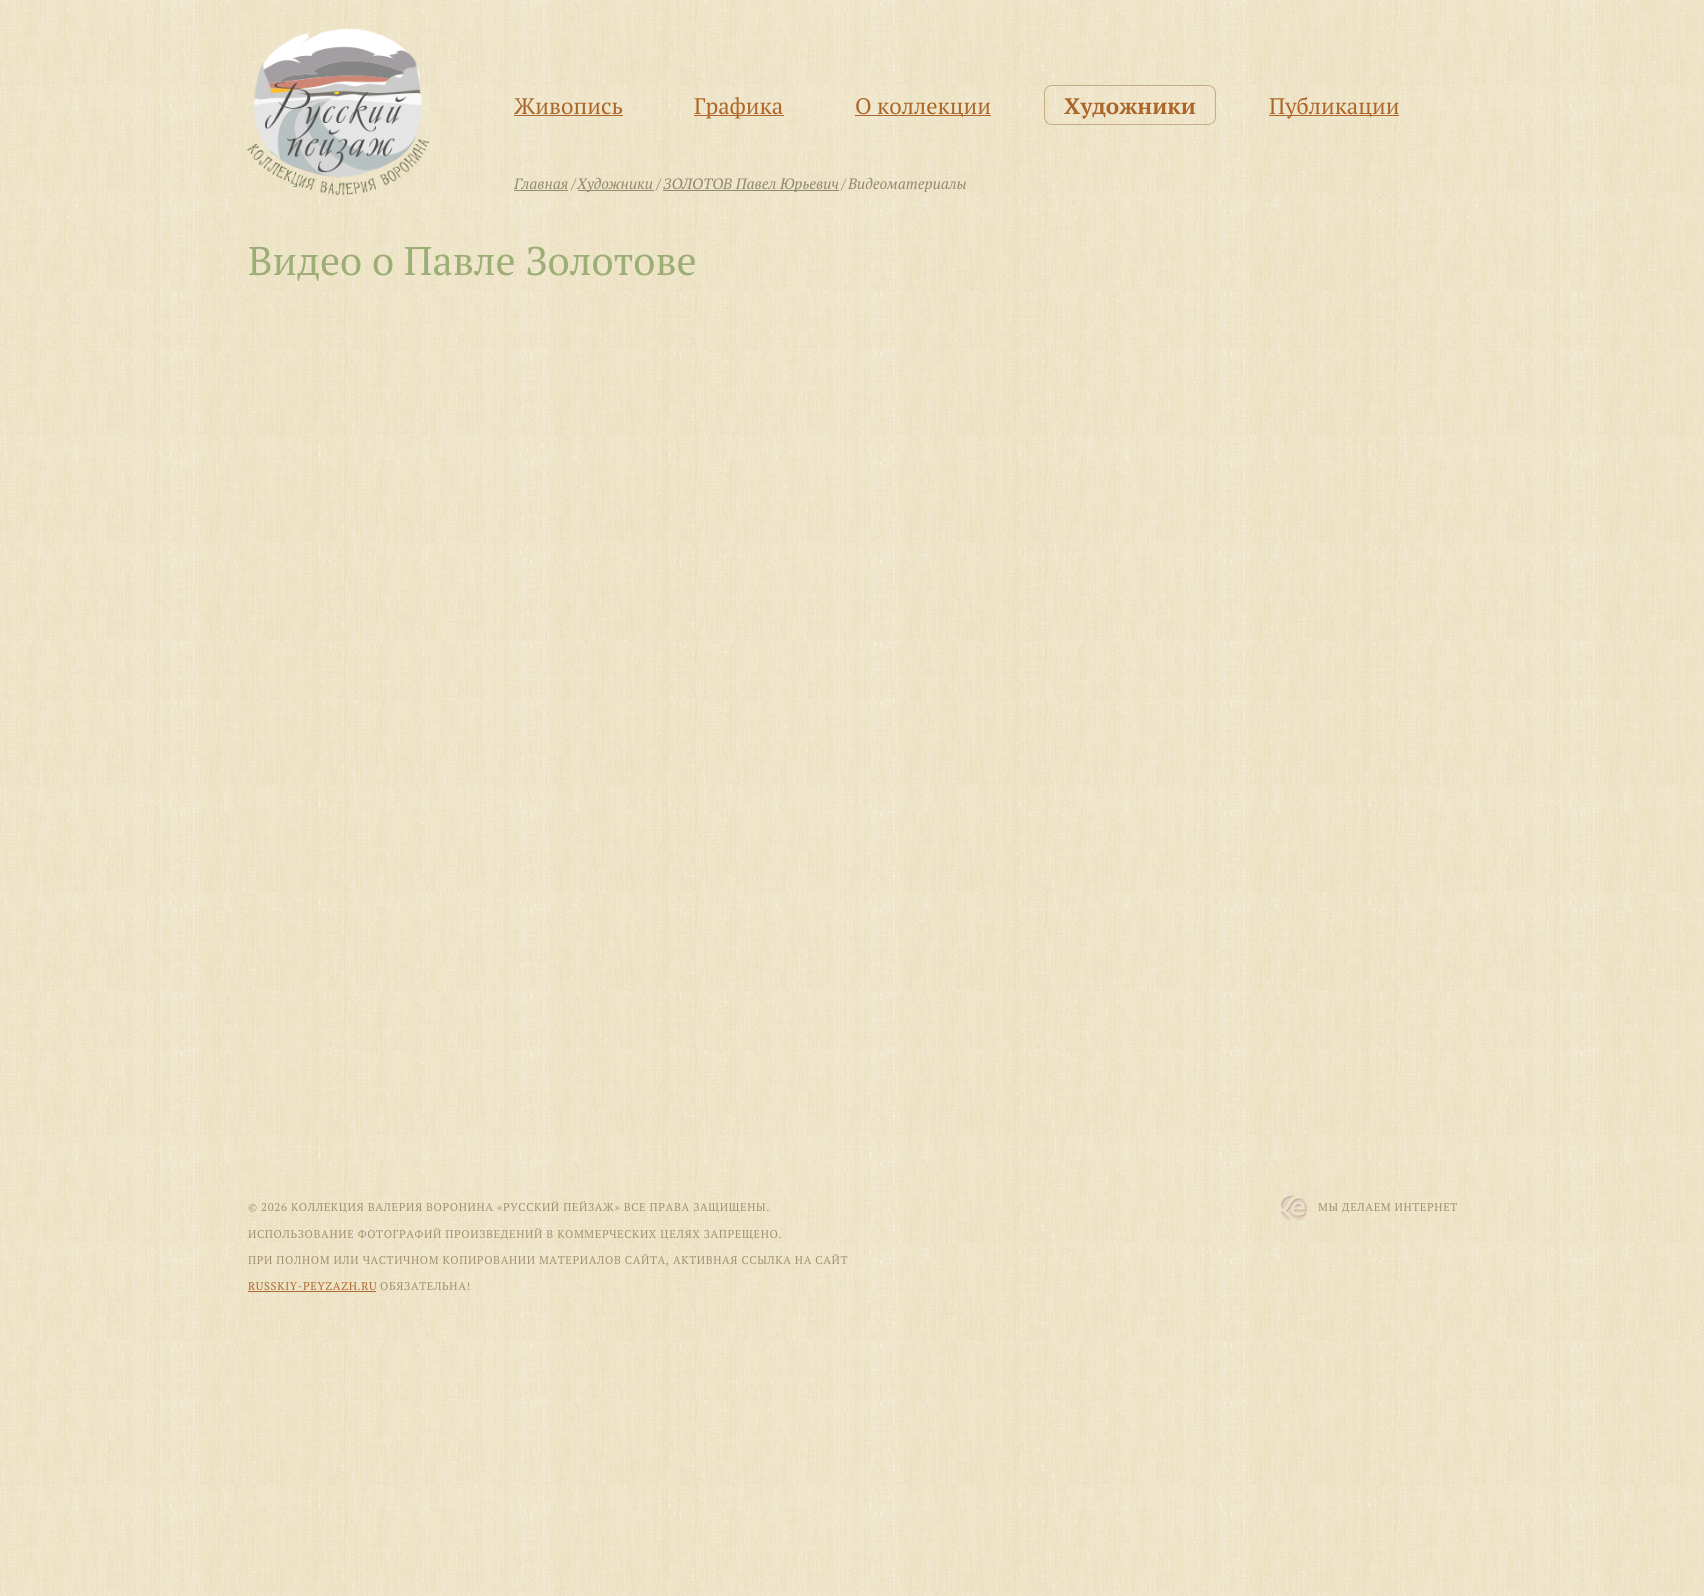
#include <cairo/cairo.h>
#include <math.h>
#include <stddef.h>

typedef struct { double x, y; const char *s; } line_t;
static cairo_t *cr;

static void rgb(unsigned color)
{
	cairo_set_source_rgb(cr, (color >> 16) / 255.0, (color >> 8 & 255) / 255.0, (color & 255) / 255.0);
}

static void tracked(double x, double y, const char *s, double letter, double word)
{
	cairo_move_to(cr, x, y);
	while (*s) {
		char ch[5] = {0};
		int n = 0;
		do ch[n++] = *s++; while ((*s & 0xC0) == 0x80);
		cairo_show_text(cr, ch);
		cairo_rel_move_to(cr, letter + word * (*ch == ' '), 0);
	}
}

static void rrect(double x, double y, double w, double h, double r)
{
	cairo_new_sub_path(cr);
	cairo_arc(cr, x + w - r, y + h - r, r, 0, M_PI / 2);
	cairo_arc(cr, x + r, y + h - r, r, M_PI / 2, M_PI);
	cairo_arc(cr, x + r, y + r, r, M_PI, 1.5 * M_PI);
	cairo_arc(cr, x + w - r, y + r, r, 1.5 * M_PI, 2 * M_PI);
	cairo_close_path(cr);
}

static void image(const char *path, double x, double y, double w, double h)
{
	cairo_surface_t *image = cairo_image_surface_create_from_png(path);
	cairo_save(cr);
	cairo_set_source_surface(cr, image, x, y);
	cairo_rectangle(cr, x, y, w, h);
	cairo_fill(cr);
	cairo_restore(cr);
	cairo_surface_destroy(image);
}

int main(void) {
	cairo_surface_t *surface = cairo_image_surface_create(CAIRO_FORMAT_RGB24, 1704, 1596);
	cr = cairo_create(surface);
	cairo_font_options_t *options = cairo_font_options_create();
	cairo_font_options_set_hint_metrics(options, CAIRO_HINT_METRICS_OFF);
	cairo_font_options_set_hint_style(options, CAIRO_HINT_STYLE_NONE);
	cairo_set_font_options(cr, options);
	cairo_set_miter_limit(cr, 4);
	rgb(0xffffff);
	cairo_paint(cr);
	image("img/1.png", 0, 0, 1704, 1596);
	image("img/2.png", 247, 28, 182, 167);
	cairo_set_source_rgba(cr, 0.663, 0.369, 0.125, 0.94);
	cairo_rectangle(cr, 514, 115, 109, 1);
	cairo_fill(cr);
	cairo_rectangle(cr, 694, 115, 90, 1);
	cairo_fill(cr);
	cairo_rectangle(cr, 855, 115, 136, 1);
	cairo_fill(cr);
	rrect(1044.5, 85.5, 171, 39, 7.5);
	rgb(0xc7ab87);
	cairo_set_line_width(cr, 1);
	cairo_stroke(cr);
	cairo_set_source_rgba(cr, 0.663, 0.369, 0.125, 0.94);
	cairo_rectangle(cr, 1269, 115, 130, 1);
	cairo_fill(cr);
	rgb(0x908a6f);
	cairo_rectangle(cr, 514, 190, 54, 1);
	cairo_fill(cr);
	cairo_rectangle(cr, 578, 190, 76, 1);
	cairo_fill(cr);
	cairo_rectangle(cr, 663, 190, 176, 1);
	cairo_fill(cr);
	rgb(0xae6a34);
	cairo_rectangle(cr, 248, 1291, 128, 1);
	cairo_fill(cr);
	image("img/3.png", 1281, 1195, 27, 26);
	cairo_select_font_face(cr, "PT Serif", CAIRO_FONT_SLANT_NORMAL, CAIRO_FONT_WEIGHT_NORMAL);
	cairo_set_font_size(cr, 22.5);
	rgb(0xad662a);
	{
		static const line_t items[] = {
			{514, 114, "Живопись"},
			{694, 114, "Графика"},
			{855, 114, "О коллекции"},
		};
		for (size_t i = 0; i < sizeof items / sizeof *items; i++) {
			cairo_move_to(cr, items[i].x, items[i].y);
			cairo_show_text(cr, items[i].s);
		}
	}
	cairo_select_font_face(cr, "PT Serif", CAIRO_FONT_SLANT_NORMAL, CAIRO_FONT_WEIGHT_BOLD);
	cairo_move_to(cr, 1064, 114);
	cairo_show_text(cr, "Художники");
	cairo_select_font_face(cr, "PT Serif", CAIRO_FONT_SLANT_NORMAL, CAIRO_FONT_WEIGHT_NORMAL);
	cairo_move_to(cr, 1269, 114);
	cairo_show_text(cr, "Публикации");
	cairo_select_font_face(cr, "PT Serif", CAIRO_FONT_SLANT_ITALIC, CAIRO_FONT_WEIGHT_NORMAL);
	cairo_set_font_size(cr, 15);
	rgb(0x908a6f);
	{
		static const line_t items[] = {
			{514, 189, "Главная"},
			{571, 189, "/"},
			{577, 189, "Художники"},
			{656, 189, "/"},
			{663, 189, "ЗОЛОТОВ Павел Юрьевич"},
			{841, 189, "/"},
			{848, 189, "Видеоматериалы"},
		};
		for (size_t i = 0; i < sizeof items / sizeof *items; i++) {
			cairo_move_to(cr, items[i].x, items[i].y);
			cairo_show_text(cr, items[i].s);
		}
	}
	cairo_select_font_face(cr, "PT Serif", CAIRO_FONT_SLANT_NORMAL, CAIRO_FONT_WEIGHT_NORMAL);
	cairo_set_font_size(cr, 40);
	rgb(0x9cad75);
	cairo_move_to(cr, 248, 275);
	cairo_show_text(cr, "Видео о Павле Золотове");
	cairo_set_font_size(cr, 11.25);
	rgb(0xa19170);
	{
		static const line_t items[] = {
			{248, 1211, "© 2026 КОЛЛЕКЦИЯ ВАЛЕРИЯ ВОРОНИНА «РУССКИЙ ПЕЙЗАЖ» ВСЕ ПРАВА ЗАЩИЩЕНЫ."},
			{248, 1238, "ИСПОЛЬЗОВАНИЕ ФОТОГРАФИЙ ПРОИЗВЕДЕНИЙ В КОММЕРЧЕСКИХ ЦЕЛЯХ ЗАПРЕЩЕНО."},
			{248, 1264, "ПРИ ПОЛНОМ ИЛИ ЧАСТИЧНОМ КОПИРОВАНИИ МАТЕРИАЛОВ САЙТА, АКТИВНАЯ ССЫЛКА НА САЙТ"},
		};
		for (size_t i = 0; i < sizeof items / sizeof *items; i++) {
			tracked(items[i].x, items[i].y, items[i].s, 0.62, 0);
		}
	}
	rgb(0xae6a34);
	tracked(248, 1290, "RUSSKIY-PEYZAZH.RU", 0.62, 0);
	rgb(0xa19170);
	tracked(380, 1290, "ОБЯЗАТЕЛЬНА!", 0.62, 0);
	tracked(1318, 1211, "МЫ ДЕЛАЕМ ИНТЕРНЕТ", 0.62, 0);
	cairo_surface_write_to_png(surface, "page.png");
	cairo_font_options_destroy(options);
	cairo_destroy(cr);
	cairo_surface_destroy(surface);
	return 0;
}
